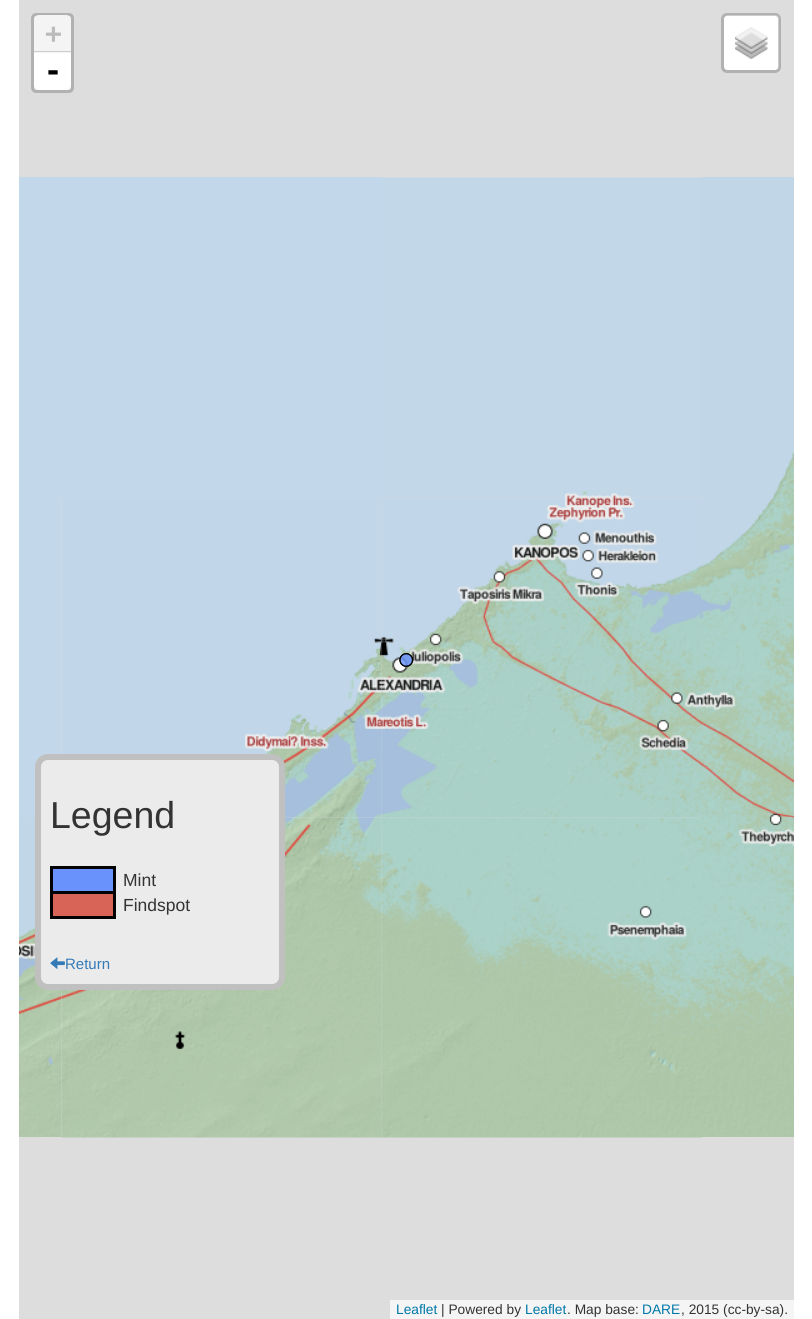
#include <cairo/cairo.h>
#include <math.h>
#include <stddef.h>

typedef struct { double x, y, w, h; unsigned color; } box_t;
static cairo_t *cr;

static void rgb(unsigned color)
{
	cairo_set_source_rgb(cr, (color >> 16) / 255.0, (color >> 8 & 255) / 255.0, (color & 255) / 255.0);
}

static void rrect(double x, double y, double w, double h, double r)
{
	cairo_new_sub_path(cr);
	cairo_arc(cr, x + w - r, y + h - r, r, 0, M_PI / 2);
	cairo_arc(cr, x + r, y + h - r, r, M_PI / 2, M_PI);
	cairo_arc(cr, x + r, y + r, r, M_PI, 1.5 * M_PI);
	cairo_arc(cr, x + w - r, y + r, r, 1.5 * M_PI, 2 * M_PI);
	cairo_close_path(cr);
}

static void image(const char *path, double x, double y, double w, double h)
{
	cairo_surface_t *image = cairo_image_surface_create_from_png(path);
	cairo_save(cr);
	cairo_set_source_surface(cr, image, x, y);
	cairo_rectangle(cr, x, y, w, h);
	cairo_fill(cr);
	cairo_restore(cr);
	cairo_surface_destroy(image);
}

int main(void) {
	cairo_surface_t *surface = cairo_image_surface_create(CAIRO_FORMAT_RGB24, 812, 1319);
	cr = cairo_create(surface);
	cairo_font_options_t *options = cairo_font_options_create();
	cairo_font_options_set_hint_metrics(options, CAIRO_HINT_METRICS_OFF);
	cairo_font_options_set_hint_style(options, CAIRO_HINT_STYLE_NONE);
	cairo_set_font_options(cr, options);
	cairo_set_miter_limit(cr, 4);
	rgb(0xffffff);
	cairo_paint(cr);
	rgb(0xdddddd);
	cairo_rectangle(cr, 19, 0, 775, 1319);
	cairo_fill(cr);
	rrect(32.5, 14.5, 40, 77, 3.5);
	rgb(0xb1b1b1);
	cairo_set_line_width(cr, 3);
	cairo_stroke(cr);
	rgb(0xf4f4f4);
	cairo_new_path(cr);
	cairo_move_to(cr, 39, 15);
	cairo_line_to(cr, 66, 15);
	cairo_curve_to(cr, 69, 15, 71, 17, 71, 20);
	cairo_line_to(cr, 71, 53);
	cairo_line_to(cr, 34, 53);
	cairo_line_to(cr, 34, 20);
	cairo_curve_to(cr, 34, 17, 36, 15, 39, 15);
	cairo_close_path(cr);
	cairo_fill(cr);
	rgb(0xcccccc);
	cairo_rectangle(cr, 34, 51, 37, 1);
	cairo_fill(cr);
	rgb(0xffffff);
	cairo_new_path(cr);
	cairo_move_to(cr, 34, 53);
	cairo_line_to(cr, 71, 53);
	cairo_line_to(cr, 71, 85);
	cairo_curve_to(cr, 71, 88, 69, 90, 66, 90);
	cairo_line_to(cr, 39, 90);
	cairo_curve_to(cr, 36, 90, 34, 88, 34, 85);
	cairo_close_path(cr);
	cairo_fill(cr);
	rrect(724, 15, 55, 55, 4);
	cairo_fill(cr);
	rrect(722.5, 14.5, 57, 57, 4.5);
	cairo_set_source_rgba(cr, 0, 0, 0, 0.2);
	cairo_stroke(cr);
	image("img/1.png", 735, 27, 33, 32);
	rgb(0xf5f5f5);
	cairo_rectangle(cr, 390, 1300, 404, 19);
	cairo_fill(cr);
	rgb(0xc2d7e9);
	cairo_rectangle(cr, 19, 177, 42, 640);
	cairo_fill(cr);
	image("img/4.png", 61, 498, 321, 320);
	image("img/5.png", 381, 497, 320, 321);
	cairo_rectangle(cr, 61, 177, 321, 321);
	cairo_fill(cr);
	image("img/2.png", 382, 177, 319, 321);
	image("img/3.png", 701, 177, 93, 320);
	image("img/6.png", 701, 497, 93, 320);
	image("img/7.png", 19, 817, 42, 320);
	image("img/8.png", 61, 817, 321, 321);
	image("img/9.png", 381, 817, 321, 321);
	image("img/10.png", 701, 817, 93, 320);
	image("img/11.png", 399, 653, 15, 14);
	rgb(0xebebeb);
	rrect(38, 757, 244, 230, 10);
	cairo_fill_preserve(cr);
	rgb(0xc0c0c0);
	cairo_set_line_width(cr, 6);
	cairo_stroke(cr);
	{
		static const box_t items[] = {
			{53, 869, 60, 22, 0x6992fd},
			{50, 866, 65, 3, 0x000000},
			{50, 891, 65, 3, 0x000000},
			{113, 891, 3, 28, 0x000000},
			{113, 866, 3, 28, 0x000000},
			{50, 916, 65, 3, 0x000000},
			{50, 891, 3, 28, 0x000000},
			{50, 866, 3, 28, 0x000000},
			{53, 894, 60, 22, 0xd86458},
		};
		for (size_t i = 0; i < sizeof items / sizeof *items; i++) {
			rgb(items[i].color);
			cairo_rectangle(cr, items[i].x, items[i].y, items[i].w, items[i].h);
			cairo_fill(cr);
		}
	}
	image("img/12.png", 50, 957, 15, 12);
	cairo_select_font_face(cr, "DejaVu Sans Mono", CAIRO_FONT_SLANT_NORMAL, CAIRO_FONT_WEIGHT_BOLD);
	cairo_set_font_size(cr, 28);
	rgb(0xbbbbbb);
	cairo_move_to(cr, 45, 43);
	cairo_show_text(cr, "+");
	cairo_set_font_size(cr, 30);
	rgb(0x000000);
	cairo_move_to(cr, 44, 81);
	cairo_show_text(cr, "-");
	cairo_select_font_face(cr, "Liberation Sans", CAIRO_FONT_SLANT_NORMAL, CAIRO_FONT_WEIGHT_NORMAL);
	cairo_set_font_size(cr, 13.75);
	rgb(0x0078a8);
	cairo_move_to(cr, 396, 1314);
	cairo_show_text(cr, "Leaflet");
	rgb(0x333333);
	cairo_move_to(cr, 441, 1314);
	cairo_show_text(cr, "| Powered by");
	rgb(0x0078a8);
	cairo_move_to(cr, 525, 1314);
	cairo_show_text(cr, "Leaflet");
	rgb(0x333333);
	cairo_move_to(cr, 567, 1314);
	cairo_show_text(cr, ". Map base:");
	rgb(0x0078a8);
	cairo_move_to(cr, 642, 1314);
	cairo_show_text(cr, "DARE");
	rgb(0x333333);
	cairo_move_to(cr, 681, 1314);
	cairo_show_text(cr, ", 2015 (cc-by-sa).");
	cairo_set_font_size(cr, 37.5);
	cairo_move_to(cr, 50, 828);
	cairo_show_text(cr, "Legend");
	cairo_set_font_size(cr, 17.5);
	cairo_move_to(cr, 123, 886);
	cairo_show_text(cr, "Mint");
	cairo_move_to(cr, 123, 911);
	cairo_show_text(cr, "Findspot");
	cairo_set_font_size(cr, 15);
	rgb(0x337ab7);
	cairo_move_to(cr, 65, 969);
	cairo_show_text(cr, "Return");
	cairo_surface_write_to_png(surface, "page.png");
	cairo_font_options_destroy(options);
	cairo_destroy(cr);
	cairo_surface_destroy(surface);
	return 0;
}
